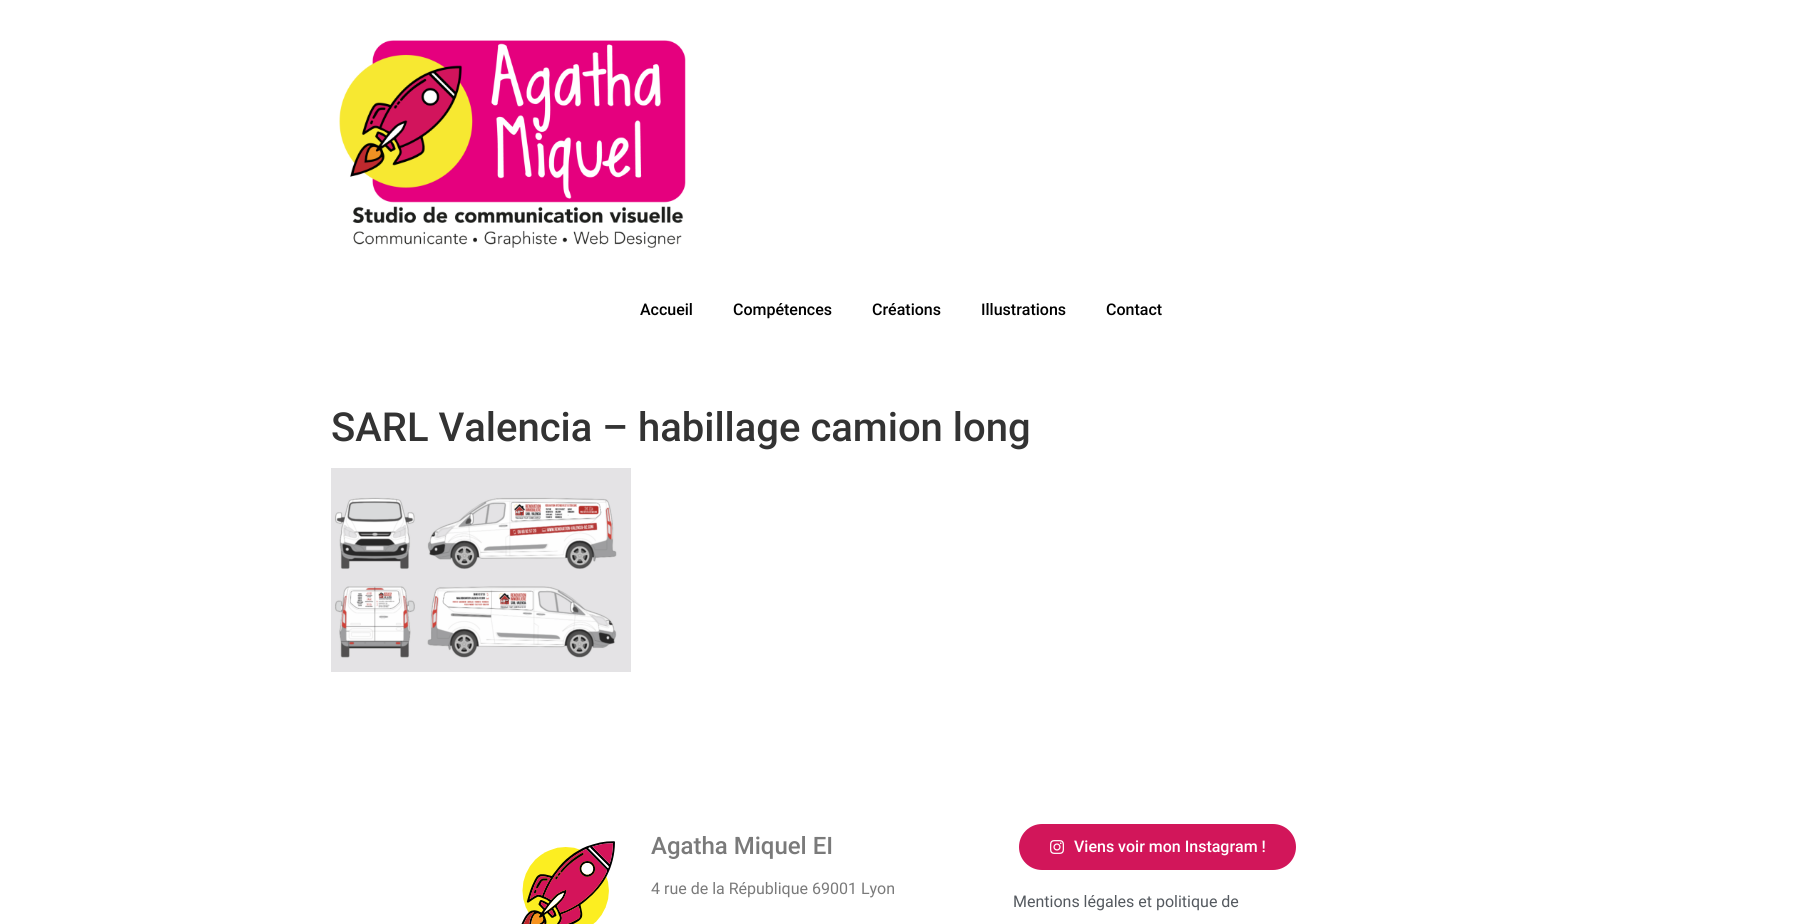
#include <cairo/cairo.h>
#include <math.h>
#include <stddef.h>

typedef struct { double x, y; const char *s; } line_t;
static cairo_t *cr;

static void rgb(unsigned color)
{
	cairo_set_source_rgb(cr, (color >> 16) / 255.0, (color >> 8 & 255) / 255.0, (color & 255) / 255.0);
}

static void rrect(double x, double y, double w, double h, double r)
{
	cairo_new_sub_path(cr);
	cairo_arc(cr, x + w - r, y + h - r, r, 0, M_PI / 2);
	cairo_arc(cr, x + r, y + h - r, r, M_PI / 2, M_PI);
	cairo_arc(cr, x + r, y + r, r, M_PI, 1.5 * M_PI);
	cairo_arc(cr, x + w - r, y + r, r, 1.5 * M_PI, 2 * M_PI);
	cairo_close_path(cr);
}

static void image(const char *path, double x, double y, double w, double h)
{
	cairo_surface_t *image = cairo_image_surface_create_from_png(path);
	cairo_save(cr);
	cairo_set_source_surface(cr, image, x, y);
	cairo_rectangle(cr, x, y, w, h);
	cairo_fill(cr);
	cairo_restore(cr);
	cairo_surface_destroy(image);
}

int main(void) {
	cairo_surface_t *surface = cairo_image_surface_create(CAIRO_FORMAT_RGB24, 1802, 924);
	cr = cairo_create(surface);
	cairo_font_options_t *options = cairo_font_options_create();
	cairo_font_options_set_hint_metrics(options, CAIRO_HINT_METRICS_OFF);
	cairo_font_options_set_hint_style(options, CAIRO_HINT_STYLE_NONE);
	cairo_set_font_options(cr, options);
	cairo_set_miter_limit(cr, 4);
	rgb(0xffffff);
	cairo_paint(cr);
	image("img/1.png", 339, 40, 347, 208);
	image("img/2.png", 331, 468, 300, 204);
	image("img/3.png", 521, 841, 94, 83);
	rgb(0xd2165a);
	rrect(1019, 824, 277, 46, 23);
	cairo_fill(cr);
	image("img/4.png", 1050, 840, 14, 14);
	cairo_select_font_face(cr, "Roboto Medium", CAIRO_FONT_SLANT_NORMAL, CAIRO_FONT_WEIGHT_NORMAL);
	cairo_set_font_size(cr, 16);
	rgb(0x000000);
	{
		static const line_t items[] = {
			{640, 315, "Accueil"},
			{733, 315, "Compétences"},
			{872, 315, "Créations"},
			{981, 315, "Illustrations"},
			{1106, 315, "Contact"},
		};
		for (size_t i = 0; i < sizeof items / sizeof *items; i++) {
			cairo_move_to(cr, items[i].x, items[i].y);
			cairo_show_text(cr, items[i].s);
		}
	}
	cairo_set_font_size(cr, 40);
	rgb(0x333333);
	cairo_move_to(cr, 331, 441);
	cairo_show_text(cr, "SARL Valencia – habillage camion long");
	cairo_set_font_size(cr, 24);
	rgb(0x7a7a7a);
	cairo_move_to(cr, 651, 854);
	cairo_show_text(cr, "Agatha Miquel EI");
	cairo_select_font_face(cr, "Roboto", CAIRO_FONT_SLANT_NORMAL, CAIRO_FONT_WEIGHT_NORMAL);
	cairo_set_font_size(cr, 16);
	cairo_move_to(cr, 651, 894);
	cairo_show_text(cr, "4 rue de la République 69001 Lyon");
	cairo_select_font_face(cr, "Roboto Medium", CAIRO_FONT_SLANT_NORMAL, CAIRO_FONT_WEIGHT_NORMAL);
	rgb(0xffffff);
	cairo_move_to(cr, 1074, 852);
	cairo_show_text(cr, "Viens voir mon Instagram !");
	cairo_select_font_face(cr, "Roboto", CAIRO_FONT_SLANT_NORMAL, CAIRO_FONT_WEIGHT_NORMAL);
	rgb(0x54595f);
	cairo_move_to(cr, 1013, 907);
	cairo_show_text(cr, "Mentions légales et politique de");
	cairo_surface_write_to_png(surface, "page.png");
	cairo_font_options_destroy(options);
	cairo_destroy(cr);
	cairo_surface_destroy(surface);
	return 0;
}
